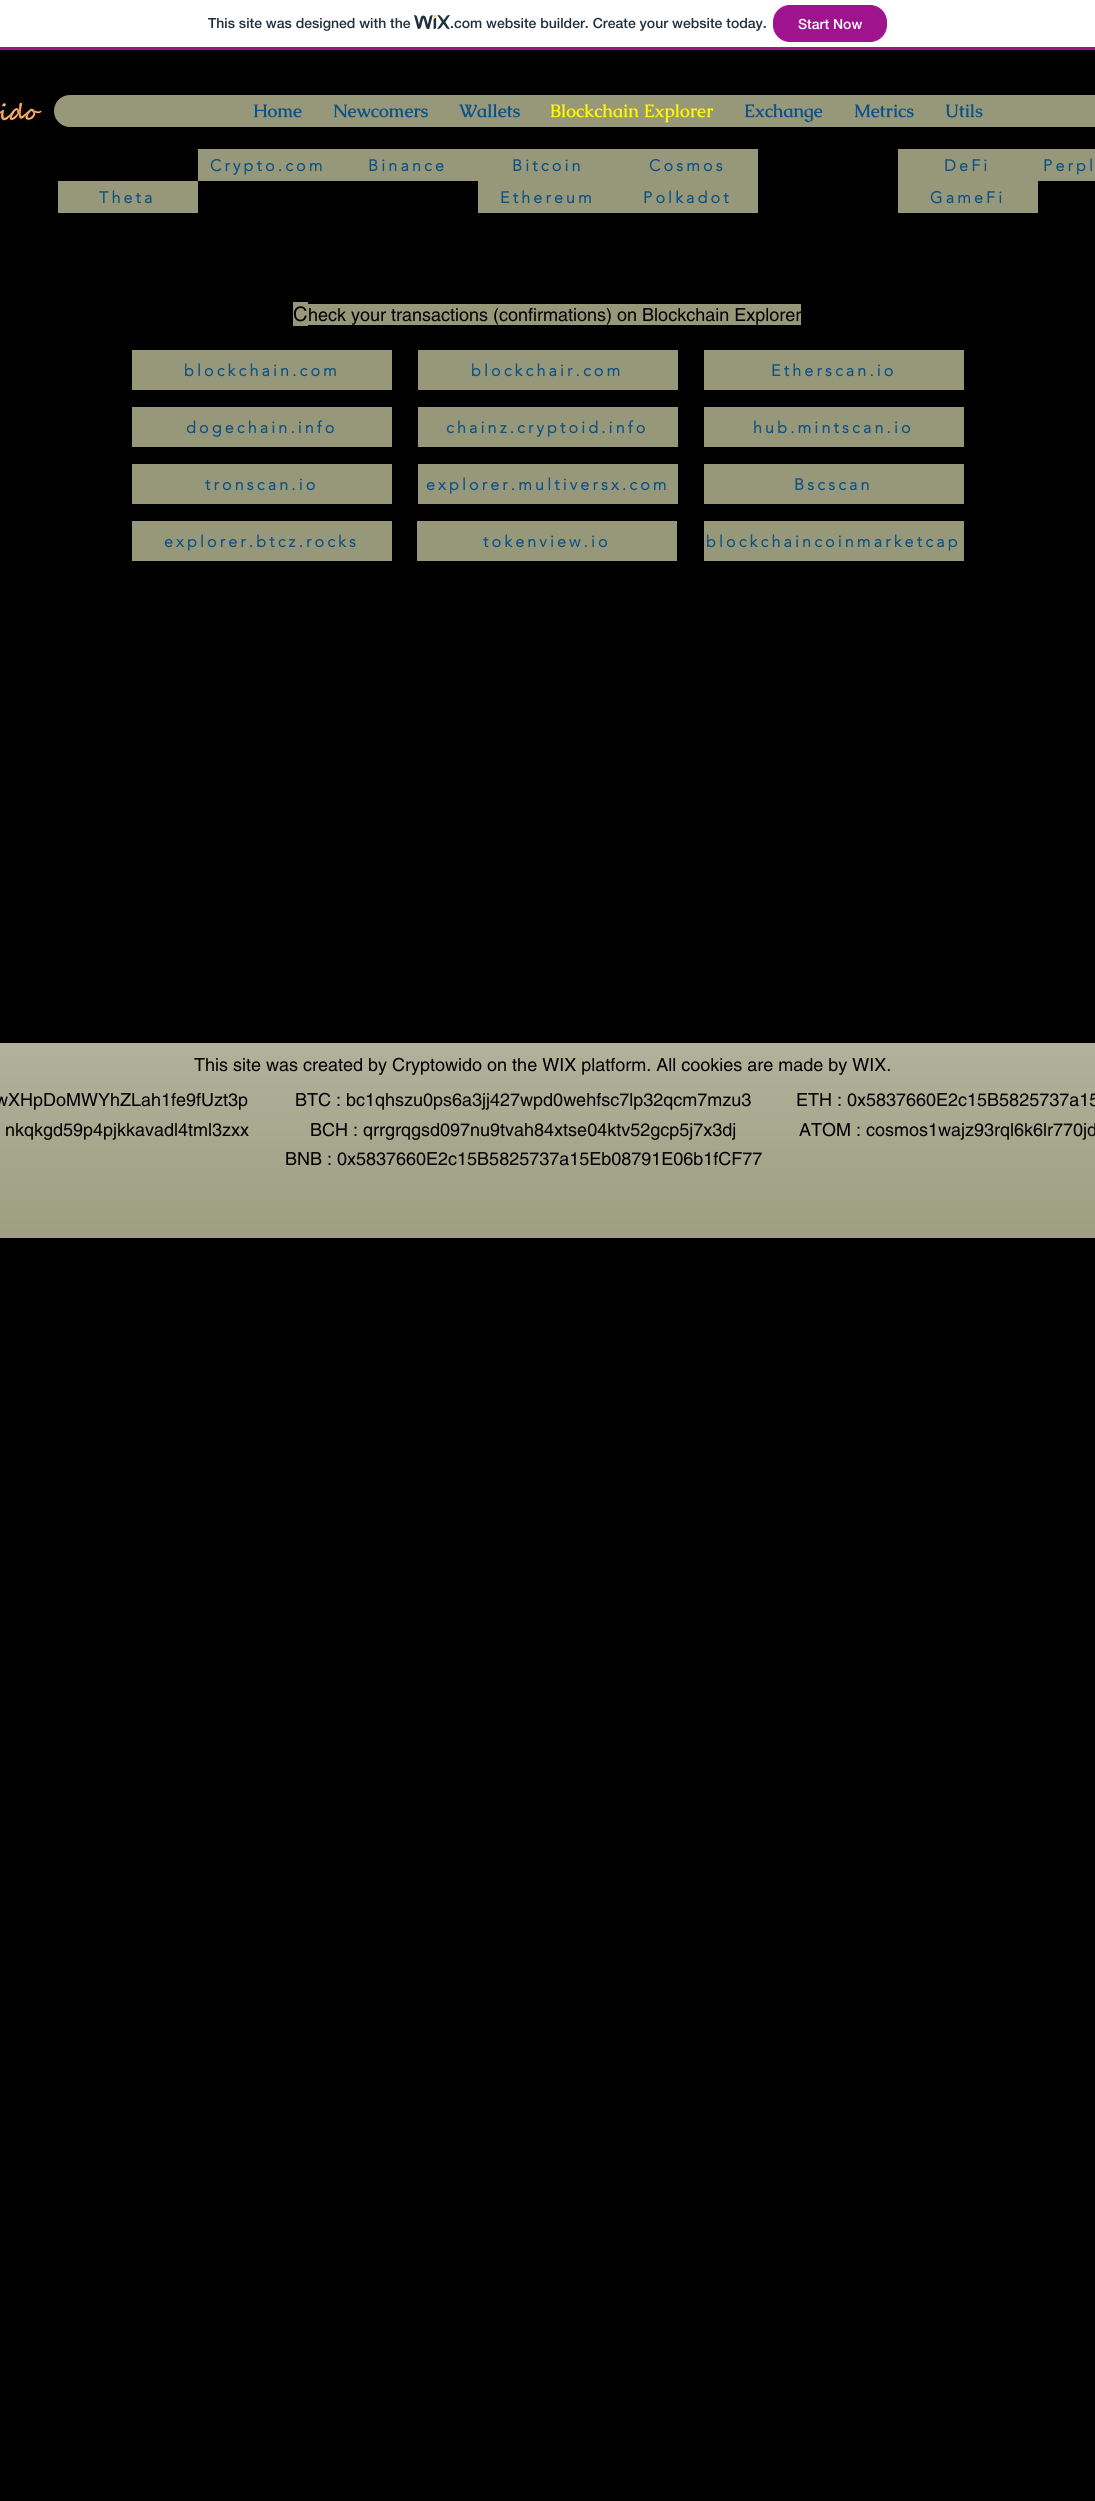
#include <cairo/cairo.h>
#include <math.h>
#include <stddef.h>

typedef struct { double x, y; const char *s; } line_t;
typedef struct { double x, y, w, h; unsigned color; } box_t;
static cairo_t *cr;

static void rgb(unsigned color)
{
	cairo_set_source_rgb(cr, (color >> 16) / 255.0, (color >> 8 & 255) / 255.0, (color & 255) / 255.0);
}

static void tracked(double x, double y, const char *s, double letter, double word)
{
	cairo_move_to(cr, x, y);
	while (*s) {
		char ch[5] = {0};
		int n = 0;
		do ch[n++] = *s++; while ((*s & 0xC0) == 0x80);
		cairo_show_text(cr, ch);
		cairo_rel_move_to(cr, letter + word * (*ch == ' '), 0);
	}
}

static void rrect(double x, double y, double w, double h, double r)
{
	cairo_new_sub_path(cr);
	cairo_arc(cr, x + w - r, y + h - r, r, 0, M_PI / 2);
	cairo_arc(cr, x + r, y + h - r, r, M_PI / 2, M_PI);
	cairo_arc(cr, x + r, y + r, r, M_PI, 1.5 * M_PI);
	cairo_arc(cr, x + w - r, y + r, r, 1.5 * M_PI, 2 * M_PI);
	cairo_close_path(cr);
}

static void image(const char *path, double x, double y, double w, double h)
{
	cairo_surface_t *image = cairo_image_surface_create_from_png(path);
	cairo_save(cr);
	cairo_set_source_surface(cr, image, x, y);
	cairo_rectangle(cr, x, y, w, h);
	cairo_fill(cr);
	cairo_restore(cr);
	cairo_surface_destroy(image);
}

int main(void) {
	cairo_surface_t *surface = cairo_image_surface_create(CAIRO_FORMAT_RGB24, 1095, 2501);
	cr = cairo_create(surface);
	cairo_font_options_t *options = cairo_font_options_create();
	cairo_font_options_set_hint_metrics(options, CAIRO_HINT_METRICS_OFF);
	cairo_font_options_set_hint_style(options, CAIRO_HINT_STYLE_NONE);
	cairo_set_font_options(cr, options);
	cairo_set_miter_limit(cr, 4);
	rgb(0xffffff);
	cairo_paint(cr);
	rgb(0xa0138e);
	cairo_rectangle(cr, 0, 47, 1095, 3);
	cairo_fill(cr);
	image("img/1.png", 414, 15, 36, 15);
	rrect(773.5, 5.5, 113, 36, 16.5);
	cairo_fill_preserve(cr);
	cairo_set_line_width(cr, 1);
	cairo_stroke(cr);
	rgb(0x000000);
	cairo_rectangle(cr, 0, 50, 1095, 2451);
	cairo_fill(cr);
	image("img/2.png", 0, 102, 43, 29);
	rgb(0x979779);
	rrect(54, 95, 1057, 32, 16);
	cairo_fill(cr);
	{
		static const box_t items[] = {
			{198, 149, 560, 32, 0x979779},
			{898, 149, 197, 32, 0x979779},
			{58, 181, 140, 32, 0x979779},
			{478, 181, 280, 32, 0x979779},
			{898, 181, 140, 32, 0x979779},
			{293, 302, 15, 24, 0x979779},
			{308, 304, 493, 21, 0x979779},
			{132, 350, 260, 40, 0x979779},
			{418, 350, 260, 40, 0x979779},
			{704, 350, 260, 40, 0x979779},
			{132, 407, 260, 40, 0x979779},
			{418, 407, 260, 40, 0x979779},
			{704, 407, 260, 40, 0x979779},
			{132, 464, 260, 40, 0x979779},
			{418, 464, 260, 40, 0x979779},
			{704, 464, 260, 40, 0x979779},
			{132, 521, 260, 40, 0x979779},
			{417, 521, 260, 40, 0x979779},
			{704, 521, 260, 40, 0x979779},
			{0, 1043, 1095, 195, 0x979779},
		};
		for (size_t i = 0; i < sizeof items / sizeof *items; i++) {
			rgb(items[i].color);
			cairo_rectangle(cr, items[i].x, items[i].y, items[i].w, items[i].h);
			cairo_fill(cr);
		}
	}
	image("img/3.png", 0, 1043, 1095, 195);
	cairo_select_font_face(cr, "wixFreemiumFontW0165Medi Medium", CAIRO_FONT_SLANT_NORMAL, CAIRO_FONT_WEIGHT_NORMAL);
	cairo_set_font_size(cr, 14);
	rgb(0x20303c);
	cairo_move_to(cr, 208, 28);
	cairo_show_text(cr, "This site was designed with the");
	cairo_move_to(cr, 450, 28);
	cairo_show_text(cr, ".com website builder. Create your website today.");
	rgb(0xffffff);
	cairo_move_to(cr, 798, 29);
	cairo_show_text(cr, "Start Now");
	cairo_select_font_face(cr, "Caudex", CAIRO_FONT_SLANT_NORMAL, CAIRO_FONT_WEIGHT_BOLD);
	cairo_set_font_size(cr, 18);
	rgb(0x0d5285);
	{
		static const line_t items[] = {
			{253, 117, "Home"},
			{333, 117, "Newcomers"},
			{459, 117, "Wallets"},
		};
		for (size_t i = 0; i < sizeof items / sizeof *items; i++) {
			cairo_move_to(cr, items[i].x, items[i].y);
			cairo_show_text(cr, items[i].s);
		}
	}
	rgb(0xfff800);
	cairo_move_to(cr, 550, 117);
	cairo_show_text(cr, "Blockchain Explorer");
	rgb(0x0d5285);
	{
		static const line_t items[] = {
			{744, 117, "Exchange"},
			{854, 117, "Metrics"},
			{945, 117, "Utils"},
		};
		for (size_t i = 0; i < sizeof items / sizeof *items; i++) {
			cairo_move_to(cr, items[i].x, items[i].y);
			cairo_show_text(cr, items[i].s);
		}
	}
	cairo_select_font_face(cr, "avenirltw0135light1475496", CAIRO_FONT_SLANT_NORMAL, CAIRO_FONT_WEIGHT_BOLD);
	cairo_set_font_size(cr, 16);
	{
		static const line_t items[] = {
			{210, 171, "Crypto.com"},
			{368, 171, "Binance"},
			{512, 171, "Bitcoin"},
			{649, 171, "Cosmos"},
			{944, 171, "DeFi"},
			{1043, 171, "Perpl"},
			{99, 203, "Theta"},
			{500, 203, "Ethereum"},
			{643, 203, "Polkadot"},
			{930, 203, "GameFi"},
		};
		for (size_t i = 0; i < sizeof items / sizeof *items; i++) {
			tracked(items[i].x, items[i].y, items[i].s, 3.2, 0);
		}
	}
	cairo_select_font_face(cr, "helvetica", CAIRO_FONT_SLANT_NORMAL, CAIRO_FONT_WEIGHT_NORMAL);
	cairo_set_font_size(cr, 20);
	rgb(0x000000);
	cairo_move_to(cr, 293, 321);
	cairo_show_text(cr, "C");
	cairo_set_font_size(cr, 18);
	cairo_move_to(cr, 308, 321);
	cairo_show_text(cr, "heck your transactions (confirmations) on Blockchain Explorer");
	cairo_select_font_face(cr, "avenirltw0135light1475496", CAIRO_FONT_SLANT_NORMAL, CAIRO_FONT_WEIGHT_BOLD);
	cairo_set_font_size(cr, 16);
	rgb(0x0d5285);
	{
		static const line_t items[] = {
			{184, 376, "blockchain.com"},
			{471, 376, "blockchair.com"},
			{771, 376, "Etherscan.io"},
			{186, 433, "dogechain.info"},
			{446, 433, "chainz.cryptoid.info"},
			{753, 433, "hub.mintscan.io"},
			{205, 490, "tronscan.io"},
			{426, 490, "explorer.multiversx.com"},
			{794, 490, "Bscscan"},
			{164, 547, "explorer.btcz.rocks"},
			{483, 547, "tokenview.io"},
			{706, 547, "blockchaincoinmarketcap"},
		};
		for (size_t i = 0; i < sizeof items / sizeof *items; i++) {
			tracked(items[i].x, items[i].y, items[i].s, 3.2, 0);
		}
	}
	cairo_select_font_face(cr, "helvetica", CAIRO_FONT_SLANT_NORMAL, CAIRO_FONT_WEIGHT_NORMAL);
	cairo_set_font_size(cr, 18);
	rgb(0x000000);
	{
		static const line_t items[] = {
			{194, 1071, "This site was created by Cryptowido on the WIX platform. All cookies are made by WIX."},
			{-5, 1106, "wXHpDoMWYhZLah1fe9fUzt3p"},
			{295, 1106, "BTC : bc1qhszu0ps6a3jj427wpd0wehfsc7lp32qcm7mzu3"},
			{796, 1106, "ETH : 0x5837660E2c15B5825737a15"},
			{5, 1136, "nkqkgd59p4pjkkavadl4tml3zxx"},
			{310, 1136, "BCH : qrrgrqgsd097nu9tvah84xtse04ktv52gcp5j7x3dj"},
			{799, 1136, "ATOM : cosmos1wajz93rql6k6lr770jd"},
			{285, 1165, "BNB : 0x5837660E2c15B5825737a15Eb08791E06b1fCF77"},
		};
		for (size_t i = 0; i < sizeof items / sizeof *items; i++) {
			cairo_move_to(cr, items[i].x, items[i].y);
			cairo_show_text(cr, items[i].s);
		}
	}
	cairo_surface_write_to_png(surface, "page.png");
	cairo_font_options_destroy(options);
	cairo_destroy(cr);
	cairo_surface_destroy(surface);
	return 0;
}
